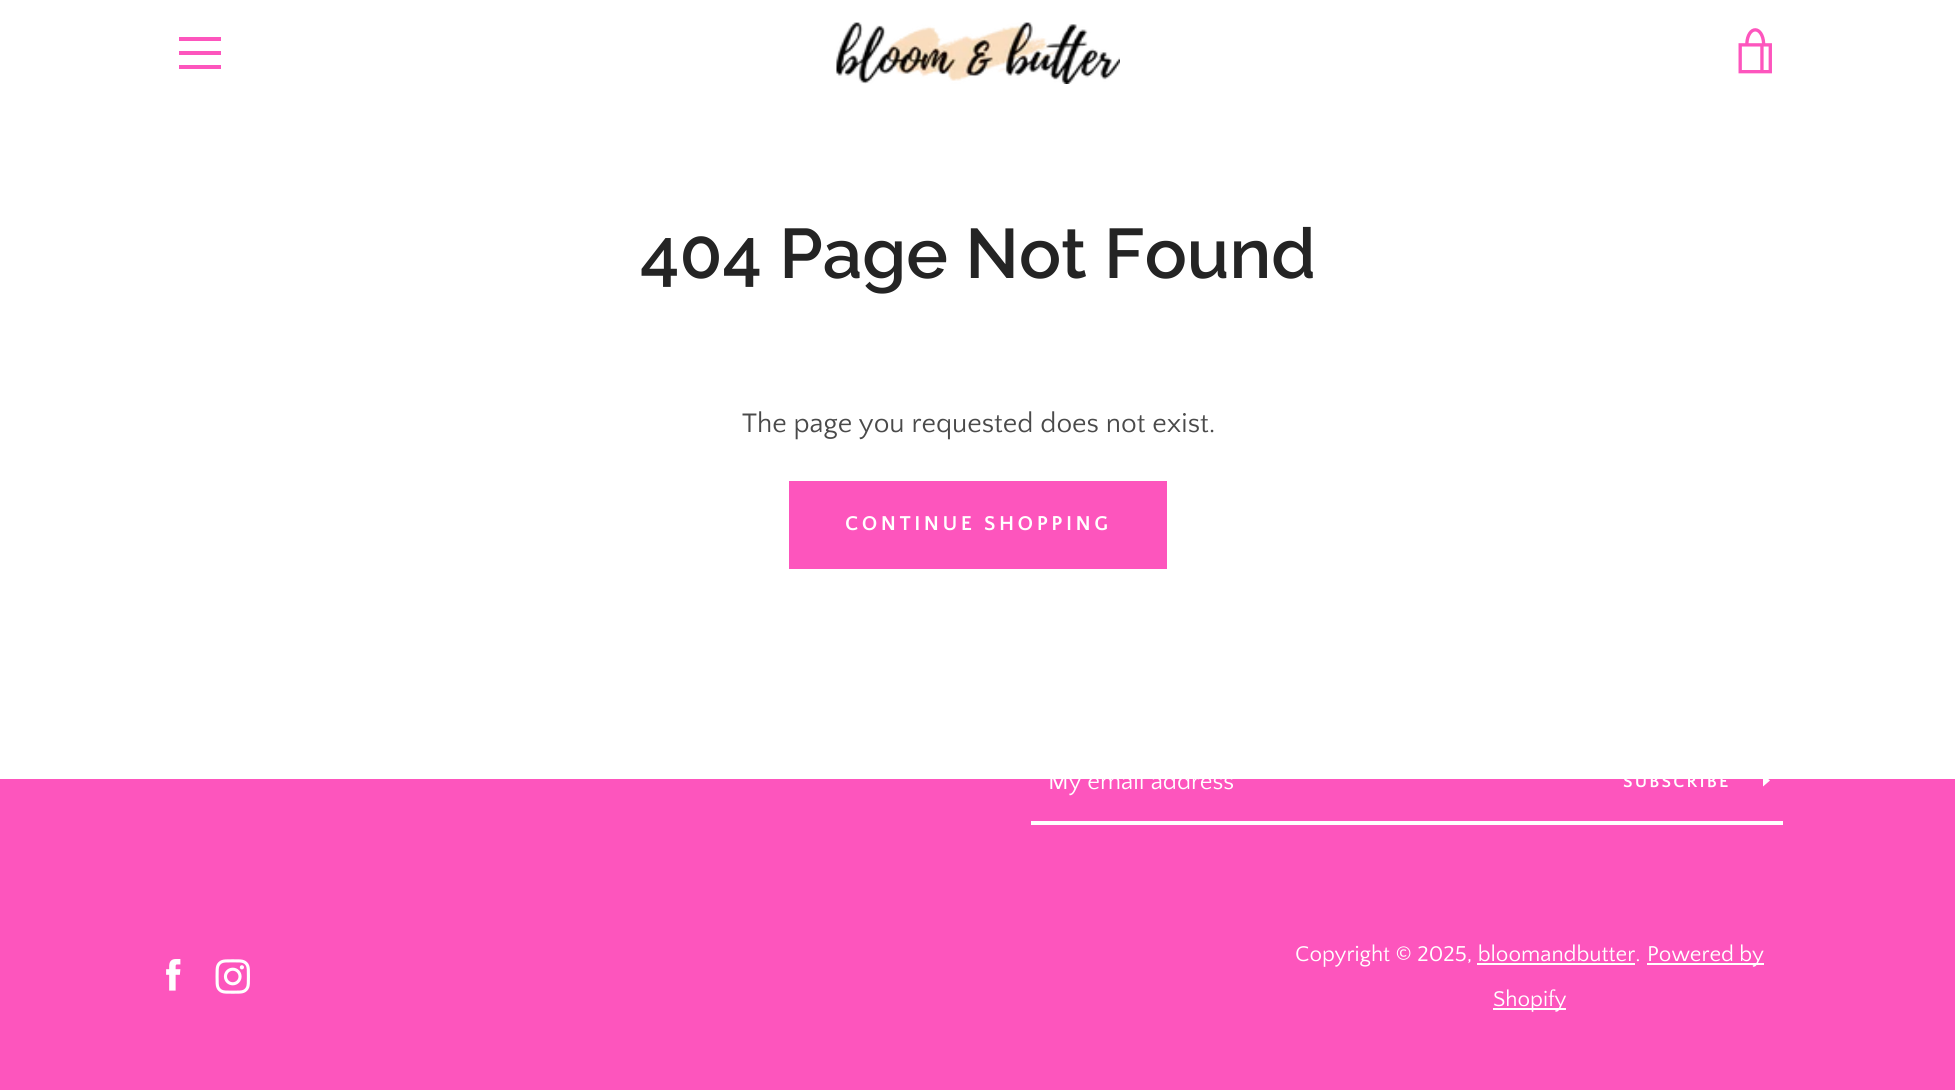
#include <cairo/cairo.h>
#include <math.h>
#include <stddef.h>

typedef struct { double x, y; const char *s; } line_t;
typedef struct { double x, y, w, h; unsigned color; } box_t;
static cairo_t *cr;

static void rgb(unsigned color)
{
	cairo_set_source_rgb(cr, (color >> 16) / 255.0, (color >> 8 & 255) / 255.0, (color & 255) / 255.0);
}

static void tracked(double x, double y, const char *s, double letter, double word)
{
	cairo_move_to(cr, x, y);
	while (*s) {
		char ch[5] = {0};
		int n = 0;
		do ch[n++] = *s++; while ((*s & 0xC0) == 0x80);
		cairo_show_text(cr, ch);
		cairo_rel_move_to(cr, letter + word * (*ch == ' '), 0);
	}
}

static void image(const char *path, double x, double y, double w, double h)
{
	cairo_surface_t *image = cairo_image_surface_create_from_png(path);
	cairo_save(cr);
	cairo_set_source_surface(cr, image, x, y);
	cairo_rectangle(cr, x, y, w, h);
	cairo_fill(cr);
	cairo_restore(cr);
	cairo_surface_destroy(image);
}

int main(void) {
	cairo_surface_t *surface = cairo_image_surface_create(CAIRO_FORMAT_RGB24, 1955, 1090);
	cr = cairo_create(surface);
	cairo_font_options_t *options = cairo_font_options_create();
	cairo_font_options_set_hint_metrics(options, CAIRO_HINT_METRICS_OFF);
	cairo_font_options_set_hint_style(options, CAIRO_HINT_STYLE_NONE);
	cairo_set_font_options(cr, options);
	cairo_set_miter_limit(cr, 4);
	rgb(0xffffff);
	cairo_paint(cr);
	{
		static const box_t items[] = {
			{179, 37, 42, 4, 0xfd55bd},
			{179, 51, 42, 4, 0xfd55bd},
			{179, 65, 42, 4, 0xfd55bd},
		};
		for (size_t i = 0; i < sizeof items / sizeof *items; i++) {
			rgb(items[i].color);
			cairo_rectangle(cr, items[i].x, items[i].y, items[i].w, items[i].h);
			cairo_fill(cr);
		}
	}
	image("img/1.png", 836, 22, 284, 62);
	image("img/2.png", 1738, 28, 34, 46);
	{
		static const box_t items[] = {
			{789, 481, 378, 88, 0xfd55bd},
			{0, 779, 1955, 311, 0xfd55bd},
			{1031, 821, 752, 4, 0xffffff},
		};
		for (size_t i = 0; i < sizeof items / sizeof *items; i++) {
			rgb(items[i].color);
			cairo_rectangle(cr, items[i].x, items[i].y, items[i].w, items[i].h);
			cairo_fill(cr);
		}
	}
	cairo_new_path(cr);
	cairo_move_to(cr, 1770, 780.5);
	cairo_line_to(cr, 1763, 786.5);
	cairo_line_to(cr, 1763, 774.5);
	cairo_close_path(cr);
	cairo_fill(cr);
	image("img/3.png", 166, 959, 15, 32);
	image("img/4.png", 215, 959, 35, 35);
	{
		static const box_t items[] = {
			{1477, 963, 158, 2, 0xffffff},
			{1647, 963, 117, 2, 0xffffff},
			{1493, 1008, 73, 2, 0xffffff},
		};
		for (size_t i = 0; i < sizeof items / sizeof *items; i++) {
			rgb(items[i].color);
			cairo_rectangle(cr, items[i].x, items[i].y, items[i].w, items[i].h);
			cairo_fill(cr);
		}
	}
	cairo_select_font_face(cr, "Raleway SemiBold", CAIRO_FONT_SLANT_NORMAL, CAIRO_FONT_WEIGHT_NORMAL);
	cairo_set_font_size(cr, 70);
	rgb(0x242424);
	cairo_move_to(cr, 640, 278);
	cairo_show_text(cr, "404 Page Not Found");
	cairo_select_font_face(cr, "Quattrocento Sans", CAIRO_FONT_SLANT_NORMAL, CAIRO_FONT_WEIGHT_NORMAL);
	cairo_set_font_size(cr, 28);
	rgb(0x4a4a4a);
	cairo_move_to(cr, 742, 432);
	cairo_show_text(cr, "The page you requested does not exist.");
	cairo_select_font_face(cr, "Quattrocento Sans", CAIRO_FONT_SLANT_NORMAL, CAIRO_FONT_WEIGHT_BOLD);
	cairo_set_font_size(cr, 21);
	rgb(0xffffff);
	tracked(845, 530, "CONTINUE SHOPPING", 3.5, 0);
	cairo_select_font_face(cr, "Quattrocento Sans", CAIRO_FONT_SLANT_NORMAL, CAIRO_FONT_WEIGHT_NORMAL);
	cairo_set_font_size(cr, 24.5);
	cairo_move_to(cr, 1048, 789);
	cairo_show_text(cr, "My email address");
	cairo_select_font_face(cr, "Quattrocento Sans", CAIRO_FONT_SLANT_NORMAL, CAIRO_FONT_WEIGHT_BOLD);
	cairo_set_font_size(cr, 17.5);
	tracked(1623, 787, "SUBSCRIBE", 2.25, 0);
	cairo_select_font_face(cr, "Quattrocento Sans", CAIRO_FONT_SLANT_NORMAL, CAIRO_FONT_WEIGHT_NORMAL);
	cairo_set_font_size(cr, 22.4);
	{
		static const line_t items[] = {
			{1295, 961, "Copyright © 2025, bloomandbutter."},
			{1647, 961, "Powered by"},
			{1493, 1006, "Shopify"},
		};
		for (size_t i = 0; i < sizeof items / sizeof *items; i++) {
			cairo_move_to(cr, items[i].x, items[i].y);
			cairo_show_text(cr, items[i].s);
		}
	}
	cairo_surface_write_to_png(surface, "page.png");
	cairo_font_options_destroy(options);
	cairo_destroy(cr);
	cairo_surface_destroy(surface);
	return 0;
}
